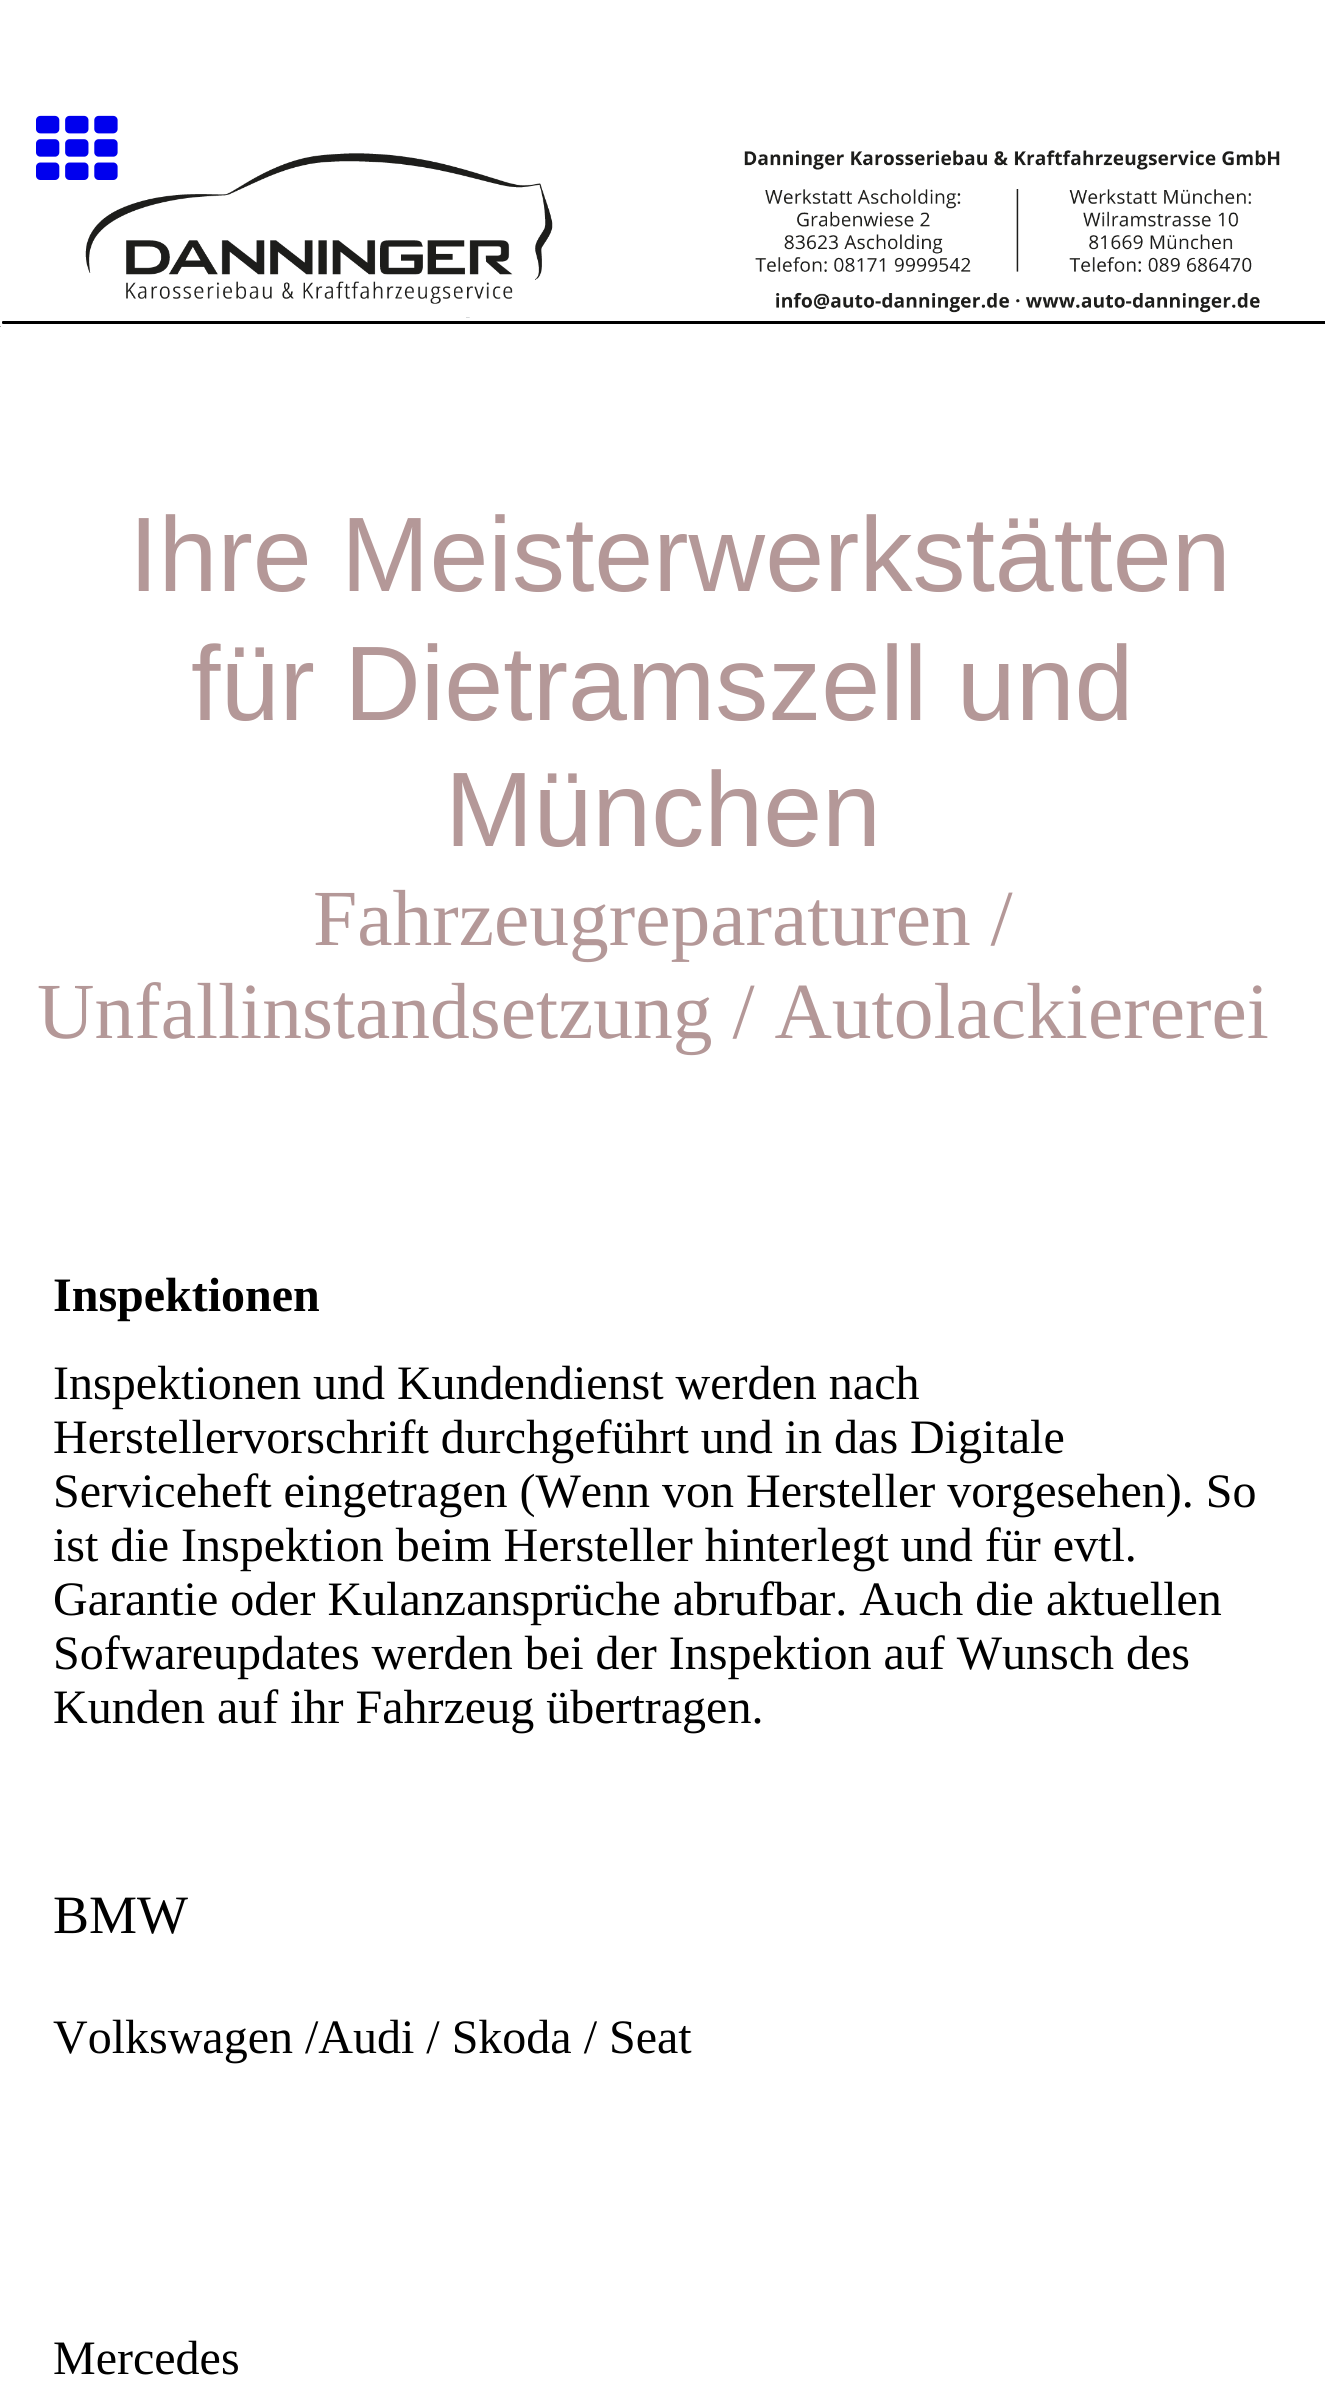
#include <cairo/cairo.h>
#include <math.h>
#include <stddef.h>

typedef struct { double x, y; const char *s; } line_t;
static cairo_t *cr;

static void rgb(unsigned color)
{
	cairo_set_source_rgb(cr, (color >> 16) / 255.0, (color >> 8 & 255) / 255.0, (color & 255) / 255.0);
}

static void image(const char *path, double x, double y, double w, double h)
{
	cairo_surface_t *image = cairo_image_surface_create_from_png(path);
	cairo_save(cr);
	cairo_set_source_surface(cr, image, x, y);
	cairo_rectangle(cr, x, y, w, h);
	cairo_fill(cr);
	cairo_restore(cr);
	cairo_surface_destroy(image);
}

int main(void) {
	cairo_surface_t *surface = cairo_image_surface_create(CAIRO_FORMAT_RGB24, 1325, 2401);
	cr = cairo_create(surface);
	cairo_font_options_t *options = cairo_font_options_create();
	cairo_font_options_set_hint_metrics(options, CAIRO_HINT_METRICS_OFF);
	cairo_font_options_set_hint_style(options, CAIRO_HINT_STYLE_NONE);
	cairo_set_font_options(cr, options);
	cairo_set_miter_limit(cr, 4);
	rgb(0xffffff);
	cairo_paint(cr);
	image("img/2.png", 0, 150, 1325, 177);
	image("img/1.png", 36, 115, 82, 65);
	cairo_select_font_face(cr, "Liberation Sans", CAIRO_FONT_SLANT_NORMAL, CAIRO_FONT_WEIGHT_NORMAL);
	cairo_set_font_size(cr, 106);
	rgb(0xb49898);
	{
		static const line_t items[] = {
			{129, 591, "Ihre Meisterwerkstätten"},
			{191, 720, "für Dietramszell und"},
			{445, 846, "München"},
		};
		for (size_t i = 0; i < sizeof items / sizeof *items; i++) {
			cairo_move_to(cr, items[i].x, items[i].y);
			cairo_show_text(cr, items[i].s);
		}
	}
	cairo_select_font_face(cr, "Liberation Serif", CAIRO_FONT_SLANT_NORMAL, CAIRO_FONT_WEIGHT_NORMAL);
	cairo_set_font_size(cr, 79.5);
	cairo_move_to(cr, 313, 945);
	cairo_show_text(cr, "Fahrzeugreparaturen /");
	cairo_move_to(cr, 37, 1038);
	cairo_show_text(cr, "Unfallinstandsetzung / Autolackiererei");
	cairo_select_font_face(cr, "Liberation Serif", CAIRO_FONT_SLANT_NORMAL, CAIRO_FONT_WEIGHT_BOLD);
	cairo_set_font_size(cr, 48);
	rgb(0x000000);
	cairo_move_to(cr, 53, 1311);
	cairo_show_text(cr, "Inspektionen");
	cairo_select_font_face(cr, "Liberation Serif", CAIRO_FONT_SLANT_NORMAL, CAIRO_FONT_WEIGHT_NORMAL);
	{
		static const line_t items[] = {
			{53, 1399, "Inspektionen und Kundendienst werden nach"},
			{53, 1453, "Herstellervorschrift durchgeführt und in das Digitale"},
			{53, 1507, "Serviceheft eingetragen (Wenn von Hersteller vorgesehen). So"},
			{53, 1561, "ist die Inspektion beim Hersteller hinterlegt und für evtl."},
			{53, 1615, "Garantie oder Kulanzansprüche abrufbar. Auch die aktuellen"},
			{53, 1669, "Sofwareupdates werden bei der Inspektion auf Wunsch des"},
			{53, 1723, "Kunden auf ihr Fahrzeug übertragen."},
		};
		for (size_t i = 0; i < sizeof items / sizeof *items; i++) {
			cairo_move_to(cr, items[i].x, items[i].y);
			cairo_show_text(cr, items[i].s);
		}
	}
	cairo_set_font_size(cr, 54);
	cairo_move_to(cr, 53, 1933);
	cairo_show_text(cr, "BMW");
	cairo_set_font_size(cr, 48);
	cairo_move_to(cr, 53, 2053);
	cairo_show_text(cr, "Volkswagen /Audi / Skoda / Seat");
	cairo_move_to(cr, 53, 2374);
	cairo_show_text(cr, "Mercedes");
	cairo_surface_write_to_png(surface, "page.png");
	cairo_font_options_destroy(options);
	cairo_destroy(cr);
	cairo_surface_destroy(surface);
	return 0;
}
